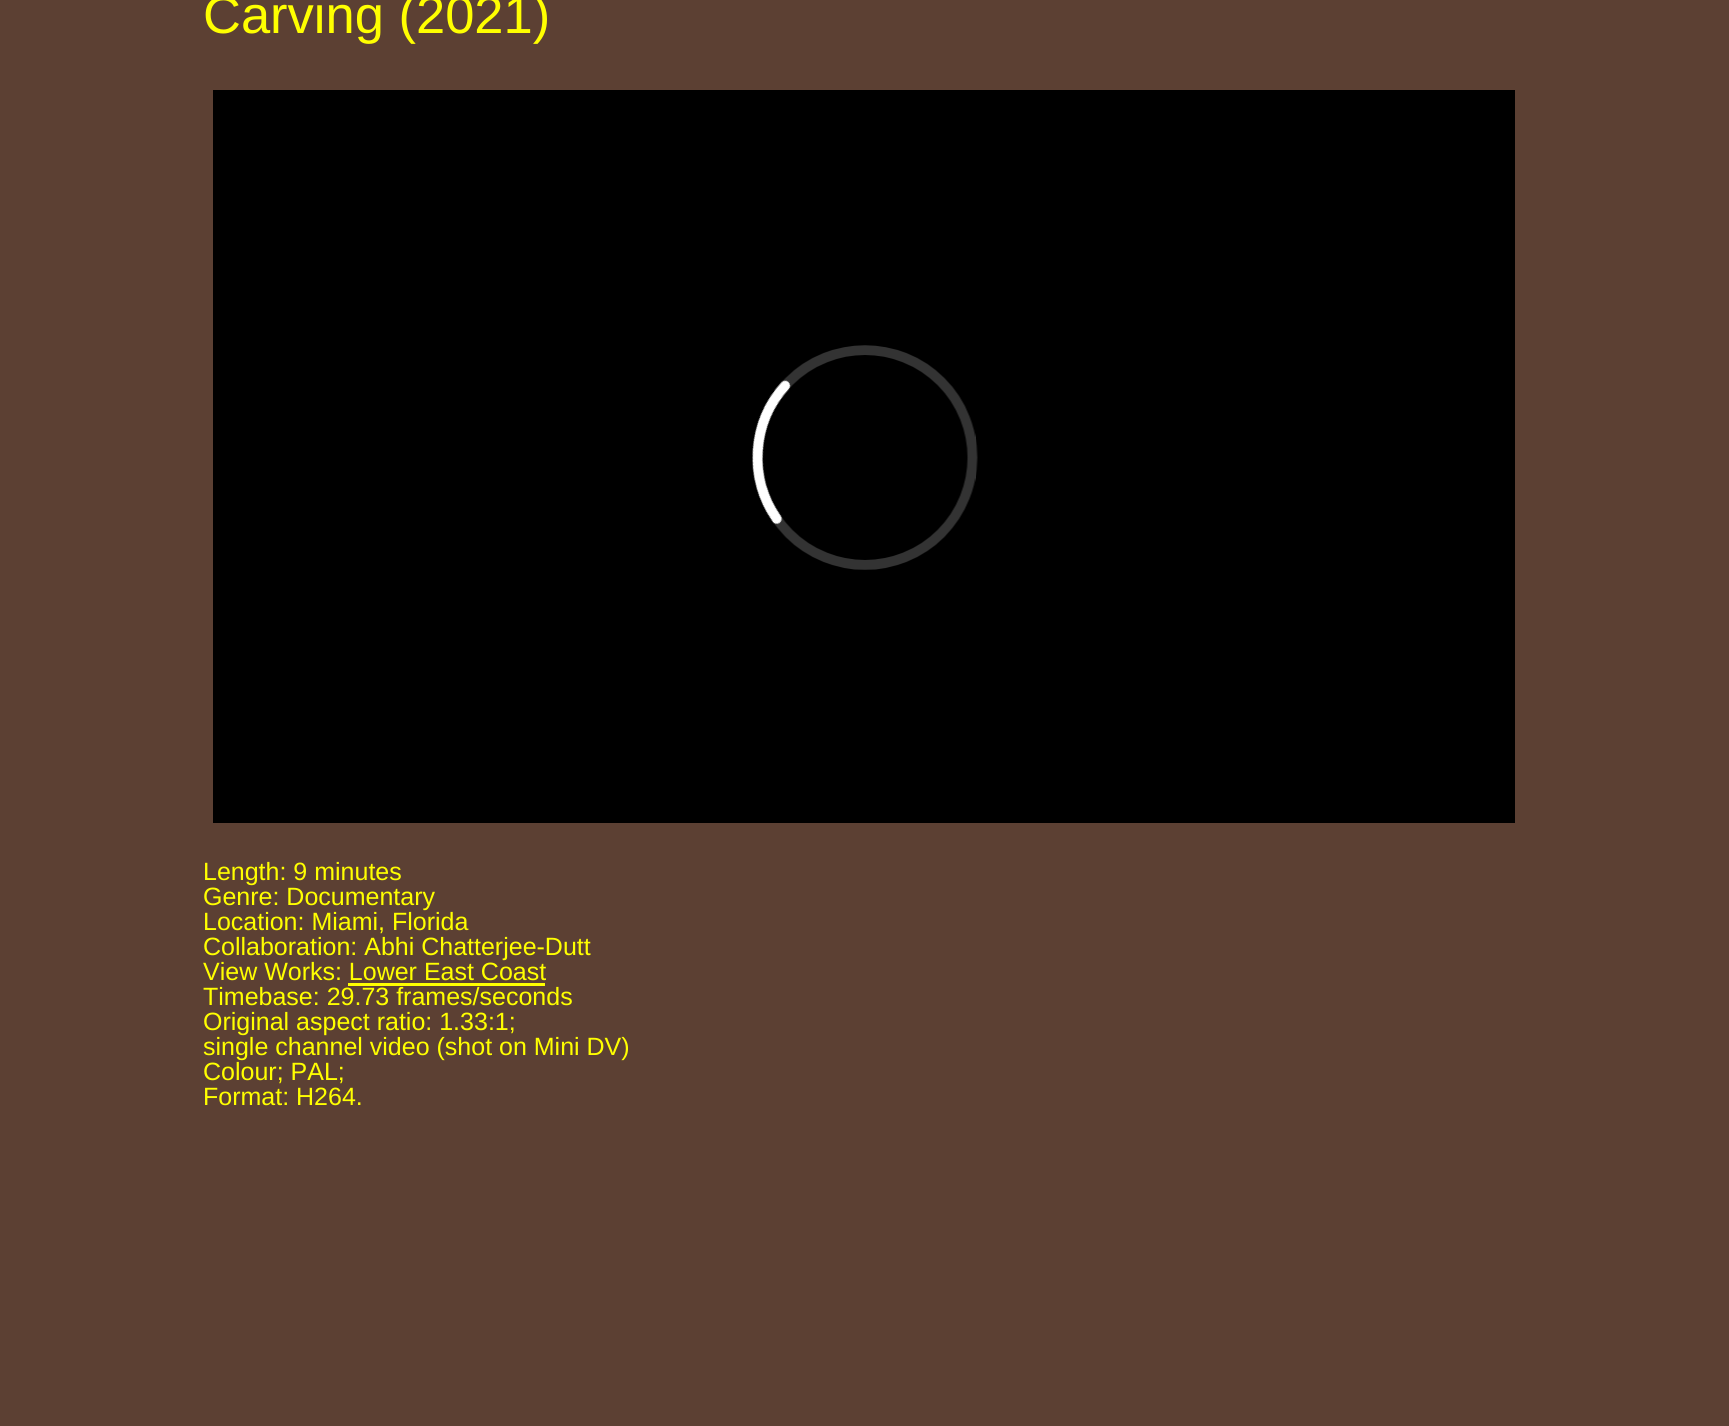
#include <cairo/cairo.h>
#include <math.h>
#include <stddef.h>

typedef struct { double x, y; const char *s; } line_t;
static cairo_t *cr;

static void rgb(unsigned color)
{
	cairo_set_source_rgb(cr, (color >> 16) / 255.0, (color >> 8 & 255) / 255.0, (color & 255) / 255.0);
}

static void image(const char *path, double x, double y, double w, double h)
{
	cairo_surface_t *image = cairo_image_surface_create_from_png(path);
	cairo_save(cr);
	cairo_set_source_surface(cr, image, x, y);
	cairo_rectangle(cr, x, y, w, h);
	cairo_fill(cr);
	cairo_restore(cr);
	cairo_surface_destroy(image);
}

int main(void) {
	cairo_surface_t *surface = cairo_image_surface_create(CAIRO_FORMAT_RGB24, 1729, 1426);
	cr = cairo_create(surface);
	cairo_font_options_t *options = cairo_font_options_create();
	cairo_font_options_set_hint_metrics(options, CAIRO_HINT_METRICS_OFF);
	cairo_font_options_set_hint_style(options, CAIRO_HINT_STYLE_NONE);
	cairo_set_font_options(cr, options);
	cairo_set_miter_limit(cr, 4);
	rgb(0x5c4033);
	cairo_paint(cr);
	rgb(0x000000);
	cairo_rectangle(cr, 213, 90, 1302, 733);
	cairo_fill(cr);
	image("img/1.png", 752, 345, 226, 225);
	rgb(0xffff00);
	cairo_rectangle(cr, 348, 983, 197, 3);
	cairo_fill(cr);
	cairo_select_font_face(cr, "Liberation Sans", CAIRO_FONT_SLANT_NORMAL, CAIRO_FONT_WEIGHT_NORMAL);
	cairo_set_font_size(cr, 52.5);
	cairo_move_to(cr, 203, 33);
	cairo_show_text(cr, "Carving (2021)");
	cairo_set_font_size(cr, 25);
	{
		static const line_t items[] = {
			{203, 880, "Length: 9 minutes"},
			{203, 905, "Genre: Documentary"},
			{203, 930, "Location: Miami, Florida"},
			{203, 955, "Collaboration: Abhi Chatterjee-Dutt"},
			{203, 980, "View Works: Lower East Coast"},
			{203, 1005, "Timebase: 29.73 frames/seconds"},
			{203, 1030, "Original aspect ratio: 1.33:1;"},
			{203, 1055, "single channel video (shot on Mini DV)"},
			{203, 1080, "Colour; PAL;"},
			{203, 1105, "Format: H264."},
		};
		for (size_t i = 0; i < sizeof items / sizeof *items; i++) {
			cairo_move_to(cr, items[i].x, items[i].y);
			cairo_show_text(cr, items[i].s);
		}
	}
	cairo_surface_write_to_png(surface, "page.png");
	cairo_font_options_destroy(options);
	cairo_destroy(cr);
	cairo_surface_destroy(surface);
	return 0;
}
